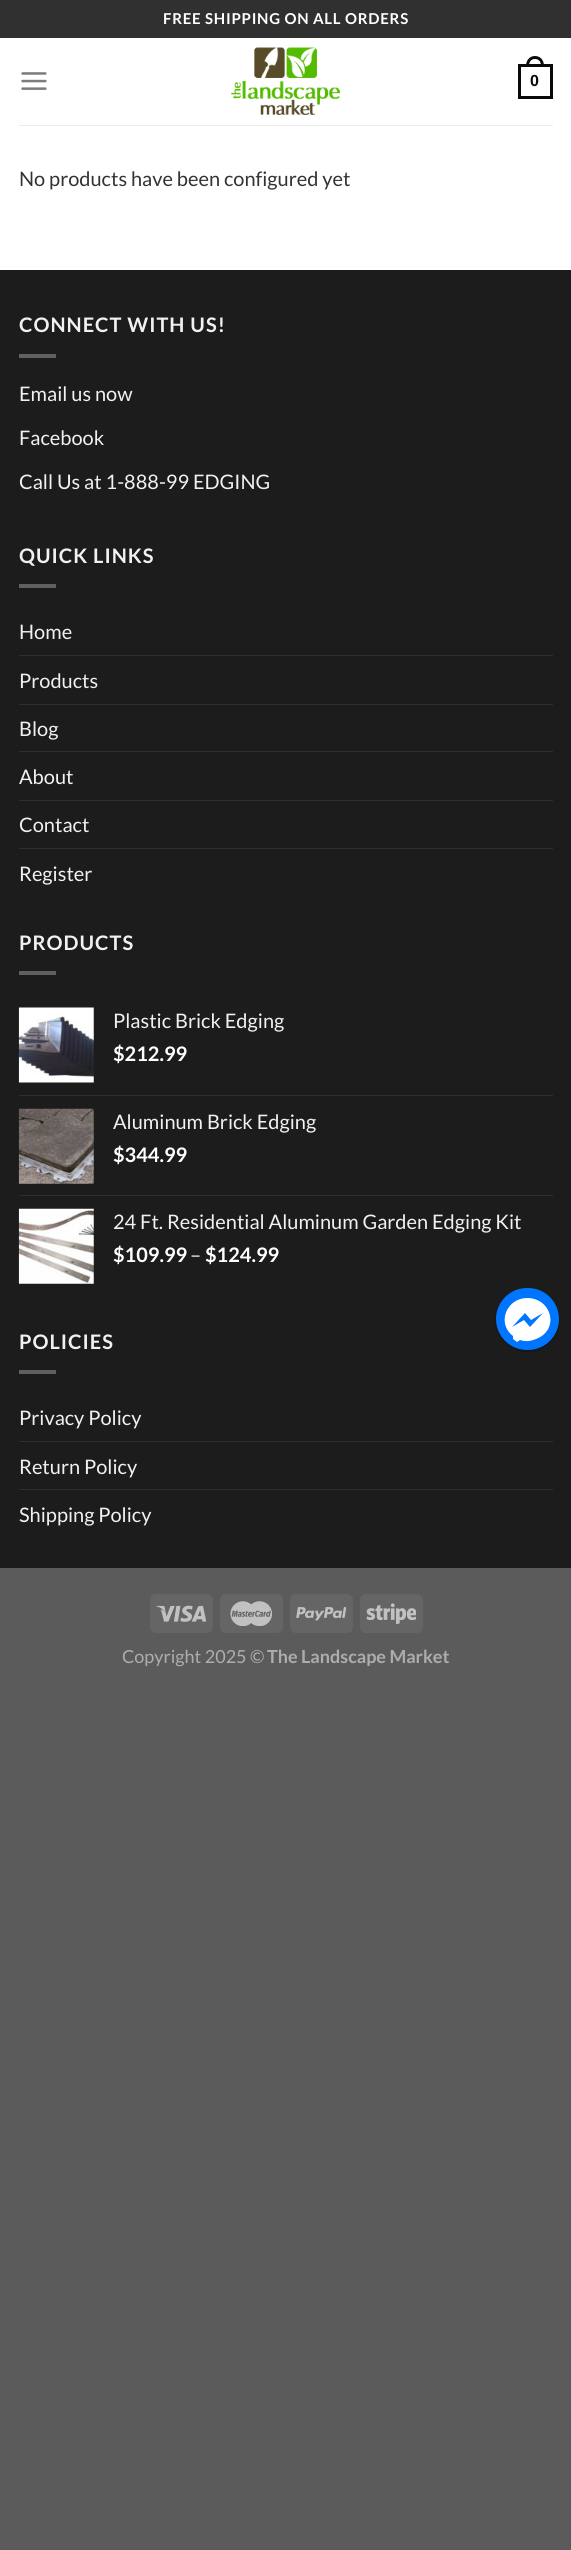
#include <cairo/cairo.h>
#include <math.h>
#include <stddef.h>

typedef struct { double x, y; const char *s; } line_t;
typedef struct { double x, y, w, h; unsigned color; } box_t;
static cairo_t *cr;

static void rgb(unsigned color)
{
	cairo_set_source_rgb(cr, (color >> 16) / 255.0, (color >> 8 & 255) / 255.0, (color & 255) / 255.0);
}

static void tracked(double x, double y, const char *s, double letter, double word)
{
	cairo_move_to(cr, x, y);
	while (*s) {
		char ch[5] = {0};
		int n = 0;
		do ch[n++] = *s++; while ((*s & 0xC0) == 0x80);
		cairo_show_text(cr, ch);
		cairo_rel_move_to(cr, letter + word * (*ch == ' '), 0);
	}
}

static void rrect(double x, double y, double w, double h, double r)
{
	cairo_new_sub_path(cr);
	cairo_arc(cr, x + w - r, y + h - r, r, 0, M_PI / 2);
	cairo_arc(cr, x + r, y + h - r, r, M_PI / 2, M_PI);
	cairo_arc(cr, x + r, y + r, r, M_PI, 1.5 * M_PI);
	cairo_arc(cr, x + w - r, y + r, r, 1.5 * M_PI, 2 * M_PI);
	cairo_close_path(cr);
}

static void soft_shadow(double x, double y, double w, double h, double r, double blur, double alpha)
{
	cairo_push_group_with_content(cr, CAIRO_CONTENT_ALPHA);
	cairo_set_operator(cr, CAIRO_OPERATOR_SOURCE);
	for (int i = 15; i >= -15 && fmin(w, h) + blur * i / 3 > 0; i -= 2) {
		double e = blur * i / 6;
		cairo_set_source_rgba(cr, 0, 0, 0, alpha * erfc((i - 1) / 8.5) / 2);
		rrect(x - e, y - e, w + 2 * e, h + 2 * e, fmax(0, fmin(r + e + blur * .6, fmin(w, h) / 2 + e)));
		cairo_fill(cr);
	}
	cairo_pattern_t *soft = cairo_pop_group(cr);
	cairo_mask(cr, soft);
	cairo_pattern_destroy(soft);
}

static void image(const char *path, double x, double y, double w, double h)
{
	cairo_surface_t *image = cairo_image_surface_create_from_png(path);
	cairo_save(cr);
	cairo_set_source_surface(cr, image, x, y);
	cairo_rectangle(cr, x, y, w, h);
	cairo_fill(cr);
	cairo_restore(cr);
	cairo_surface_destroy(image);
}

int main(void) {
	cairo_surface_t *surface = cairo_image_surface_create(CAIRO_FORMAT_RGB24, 571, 2550);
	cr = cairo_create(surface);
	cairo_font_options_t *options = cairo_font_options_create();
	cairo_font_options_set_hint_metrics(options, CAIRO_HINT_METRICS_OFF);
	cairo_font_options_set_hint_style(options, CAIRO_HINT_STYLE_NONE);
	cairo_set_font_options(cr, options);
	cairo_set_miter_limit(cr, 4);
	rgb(0x5b5b5b);
	cairo_paint(cr);
	rgb(0xffffff);
	cairo_rectangle(cr, 0, 38, 571, 232);
	cairo_fill(cr);
	rgb(0x303030);
	cairo_rectangle(cr, 0, 0, 571, 38);
	cairo_fill(cr);
	image("img/1.png", 21, 72, 26, 18);
	image("img/2.png", 231, 47, 109, 68);
	cairo_rectangle(cr, 519.5, 65.5, 32, 32);
	rgb(0x0a0a0a);
	cairo_set_line_width(cr, 3);
	cairo_stroke(cr);
	cairo_set_fill_rule(cr, CAIRO_FILL_RULE_EVEN_ODD);
	cairo_new_path(cr);
	cairo_move_to(cr, 535, 56);
	cairo_curve_to(cr, 541, 56, 544, 61, 544, 66);
	cairo_line_to(cr, 526, 66);
	cairo_curve_to(cr, 526, 61, 529, 56, 535, 56);
	cairo_close_path(cr);
	cairo_move_to(cr, 535, 59);
	cairo_curve_to(cr, 539.5, 59, 541, 62.5, 541, 66);
	cairo_line_to(cr, 529, 66);
	cairo_curve_to(cr, 529, 62.5, 530.5, 59, 535, 59);
	cairo_close_path(cr);
	cairo_fill(cr);
	{
		static const box_t items[] = {
			{19, 125, 534, 1, 0xebebeb},
			{0, 270, 571, 1298, 0x1c1c1c},
			{19, 354, 37, 4, 0x606060},
			{19, 584, 37, 4, 0x606060},
			{19, 655, 534, 1, 0x2e2e2e},
			{19, 704, 534, 1, 0x2e2e2e},
			{19, 751, 534, 1, 0x2e2e2e},
			{19, 800, 534, 1, 0x2e2e2e},
			{19, 848, 534, 1, 0x2e2e2e},
			{19, 971, 37, 4, 0x606060},
		};
		for (size_t i = 0; i < sizeof items / sizeof *items; i++) {
			rgb(items[i].color);
			cairo_rectangle(cr, items[i].x, items[i].y, items[i].w, items[i].h);
			cairo_fill(cr);
		}
	}
	image("img/3.png", 18, 1007, 76, 76);
	rgb(0x2e2e2e);
	cairo_rectangle(cr, 19, 1095, 534, 1);
	cairo_fill(cr);
	image("img/4.png", 18, 1108, 76, 76);
	cairo_rectangle(cr, 19, 1195, 534, 1);
	cairo_fill(cr);
	image("img/5.png", 18, 1208, 76, 76);
	{
		static const box_t items[] = {
			{19, 1370, 37, 4, 0x606060},
			{19, 1441, 534, 1, 0x2e2e2e},
			{19, 1489, 534, 1, 0x2e2e2e},
		};
		for (size_t i = 0; i < sizeof items / sizeof *items; i++) {
			rgb(items[i].color);
			cairo_rectangle(cr, items[i].x, items[i].y, items[i].w, items[i].h);
			cairo_fill(cr);
		}
	}
	rgb(0x656565);
	rrect(150, 1594, 63, 39, 6);
	cairo_fill(cr);
	image("img/6.png", 156, 1605, 50, 17);
	rrect(220, 1594, 63, 39, 6);
	cairo_fill(cr);
	image("img/7.png", 230, 1601, 43, 25);
	rrect(290, 1594, 63, 39, 6);
	cairo_fill(cr);
	image("img/8.png", 296, 1607, 50, 14);
	rrect(360, 1594, 63, 39, 6);
	cairo_fill(cr);
	image("img/9.png", 366, 1603, 50, 22);
	rgb(0x000000);
	soft_shadow(496, 1289, 63, 62, 31, 1, 0.4);
	rgb(0x0075ff);
	rrect(496, 1288, 63, 62, 31);
	cairo_fill(cr);
	rgb(0xffffff);
	cairo_new_path(cr);
	cairo_move_to(cr, 527, 1298);
	cairo_curve_to(cr, 552, 1298, 560, 1330, 536, 1339);
	cairo_curve_to(cr, 531, 1341, 526, 1342, 520, 1340);
	cairo_line_to(cr, 517, 1342);
	cairo_line_to(cr, 513, 1339);
	cairo_line_to(cr, 513, 1336);
	cairo_curve_to(cr, 496, 1323, 507, 1298, 527, 1298);
	cairo_close_path(cr);
	cairo_move_to(cr, 530, 1327);
	cairo_line_to(cr, 524, 1320);
	cairo_line_to(cr, 512, 1327);
	cairo_line_to(cr, 525, 1313);
	cairo_line_to(cr, 531, 1320);
	cairo_line_to(cr, 543, 1313);
	cairo_close_path(cr);
	cairo_fill(cr);
	cairo_select_font_face(cr, "Lato", CAIRO_FONT_SLANT_NORMAL, CAIRO_FONT_WEIGHT_BOLD);
	cairo_set_font_size(cr, 15);
	tracked(163, 24, "FREE SHIPPING ON ALL ORDERS", 0.75, 0);
	cairo_select_font_face(cr, "Liberation Sans", CAIRO_FONT_SLANT_NORMAL, CAIRO_FONT_WEIGHT_BOLD);
	cairo_set_font_size(cr, 16);
	rgb(0x0a0a0a);
	cairo_move_to(cr, 530, 86);
	cairo_show_text(cr, "0");
	cairo_select_font_face(cr, "Lato", CAIRO_FONT_SLANT_NORMAL, CAIRO_FONT_WEIGHT_NORMAL);
	cairo_set_font_size(cr, 20);
	rgb(0x333333);
	cairo_move_to(cr, 19, 186);
	cairo_show_text(cr, "No products have been configured yet");
	cairo_select_font_face(cr, "Lato", CAIRO_FONT_SLANT_NORMAL, CAIRO_FONT_WEIGHT_BOLD);
	rgb(0xf1f1f1);
	tracked(19, 332, "CONNECT WITH US!", 1, 0);
	cairo_select_font_face(cr, "Lato", CAIRO_FONT_SLANT_NORMAL, CAIRO_FONT_WEIGHT_NORMAL);
	{
		static const line_t items[] = {
			{19, 401, "Email us now"},
			{19, 445, "Facebook"},
			{19, 489, "Call Us at 1-888-99 EDGING"},
		};
		for (size_t i = 0; i < sizeof items / sizeof *items; i++) {
			cairo_move_to(cr, items[i].x, items[i].y);
			cairo_show_text(cr, items[i].s);
		}
	}
	cairo_select_font_face(cr, "Lato", CAIRO_FONT_SLANT_NORMAL, CAIRO_FONT_WEIGHT_BOLD);
	tracked(19, 563, "QUICK LINKS", 1, 0);
	cairo_select_font_face(cr, "Lato", CAIRO_FONT_SLANT_NORMAL, CAIRO_FONT_WEIGHT_NORMAL);
	{
		static const line_t items[] = {
			{19, 639, "Home"},
			{19, 688, "Products"},
			{19, 736, "Blog"},
			{19, 784, "About"},
			{19, 832, "Contact"},
			{19, 881, "Register"},
		};
		for (size_t i = 0; i < sizeof items / sizeof *items; i++) {
			cairo_move_to(cr, items[i].x, items[i].y);
			cairo_show_text(cr, items[i].s);
		}
	}
	cairo_select_font_face(cr, "Lato", CAIRO_FONT_SLANT_NORMAL, CAIRO_FONT_WEIGHT_BOLD);
	tracked(19, 950, "PRODUCTS", 1, 0);
	cairo_select_font_face(cr, "Lato", CAIRO_FONT_SLANT_NORMAL, CAIRO_FONT_WEIGHT_NORMAL);
	cairo_move_to(cr, 113, 1028);
	cairo_show_text(cr, "Plastic Brick Edging");
	cairo_select_font_face(cr, "Lato", CAIRO_FONT_SLANT_NORMAL, CAIRO_FONT_WEIGHT_BOLD);
	rgb(0xffffff);
	cairo_move_to(cr, 113, 1061);
	cairo_show_text(cr, "$212.99");
	cairo_select_font_face(cr, "Lato", CAIRO_FONT_SLANT_NORMAL, CAIRO_FONT_WEIGHT_NORMAL);
	rgb(0xf1f1f1);
	cairo_move_to(cr, 113, 1129);
	cairo_show_text(cr, "Aluminum Brick Edging");
	cairo_select_font_face(cr, "Lato", CAIRO_FONT_SLANT_NORMAL, CAIRO_FONT_WEIGHT_BOLD);
	rgb(0xffffff);
	cairo_move_to(cr, 113, 1162);
	cairo_show_text(cr, "$344.99");
	cairo_select_font_face(cr, "Lato", CAIRO_FONT_SLANT_NORMAL, CAIRO_FONT_WEIGHT_NORMAL);
	rgb(0xf1f1f1);
	cairo_move_to(cr, 113, 1229);
	cairo_show_text(cr, "24 Ft. Residential Aluminum Garden Edging Kit");
	cairo_select_font_face(cr, "Lato", CAIRO_FONT_SLANT_NORMAL, CAIRO_FONT_WEIGHT_BOLD);
	rgb(0xffffff);
	cairo_move_to(cr, 113, 1262);
	cairo_show_text(cr, "$109.99");
	cairo_select_font_face(cr, "Lato", CAIRO_FONT_SLANT_NORMAL, CAIRO_FONT_WEIGHT_NORMAL);
	rgb(0xf1f1f1);
	cairo_move_to(cr, 190, 1262);
	cairo_show_text(cr, "–");
	cairo_select_font_face(cr, "Lato", CAIRO_FONT_SLANT_NORMAL, CAIRO_FONT_WEIGHT_BOLD);
	rgb(0xffffff);
	cairo_move_to(cr, 205, 1262);
	cairo_show_text(cr, "$124.99");
	rgb(0xf1f1f1);
	tracked(19, 1349, "POLICIES", 1, 0);
	cairo_select_font_face(cr, "Lato", CAIRO_FONT_SLANT_NORMAL, CAIRO_FONT_WEIGHT_NORMAL);
	{
		static const line_t items[] = {
			{19, 1425, "Privacy Policy"},
			{19, 1474, "Return Policy"},
			{19, 1522, "Shipping Policy"},
		};
		for (size_t i = 0; i < sizeof items / sizeof *items; i++) {
			cairo_move_to(cr, items[i].x, items[i].y);
			cairo_show_text(cr, items[i].s);
		}
	}
	cairo_set_font_size(cr, 18);
	rgb(0xadadad);
	cairo_move_to(cr, 122, 1663);
	cairo_show_text(cr, "Copyright 2025 ©");
	cairo_select_font_face(cr, "Lato", CAIRO_FONT_SLANT_NORMAL, CAIRO_FONT_WEIGHT_BOLD);
	cairo_move_to(cr, 267, 1663);
	cairo_show_text(cr, "The Landscape Market");
	cairo_surface_write_to_png(surface, "page.png");
	cairo_font_options_destroy(options);
	cairo_destroy(cr);
	cairo_surface_destroy(surface);
	return 0;
}
